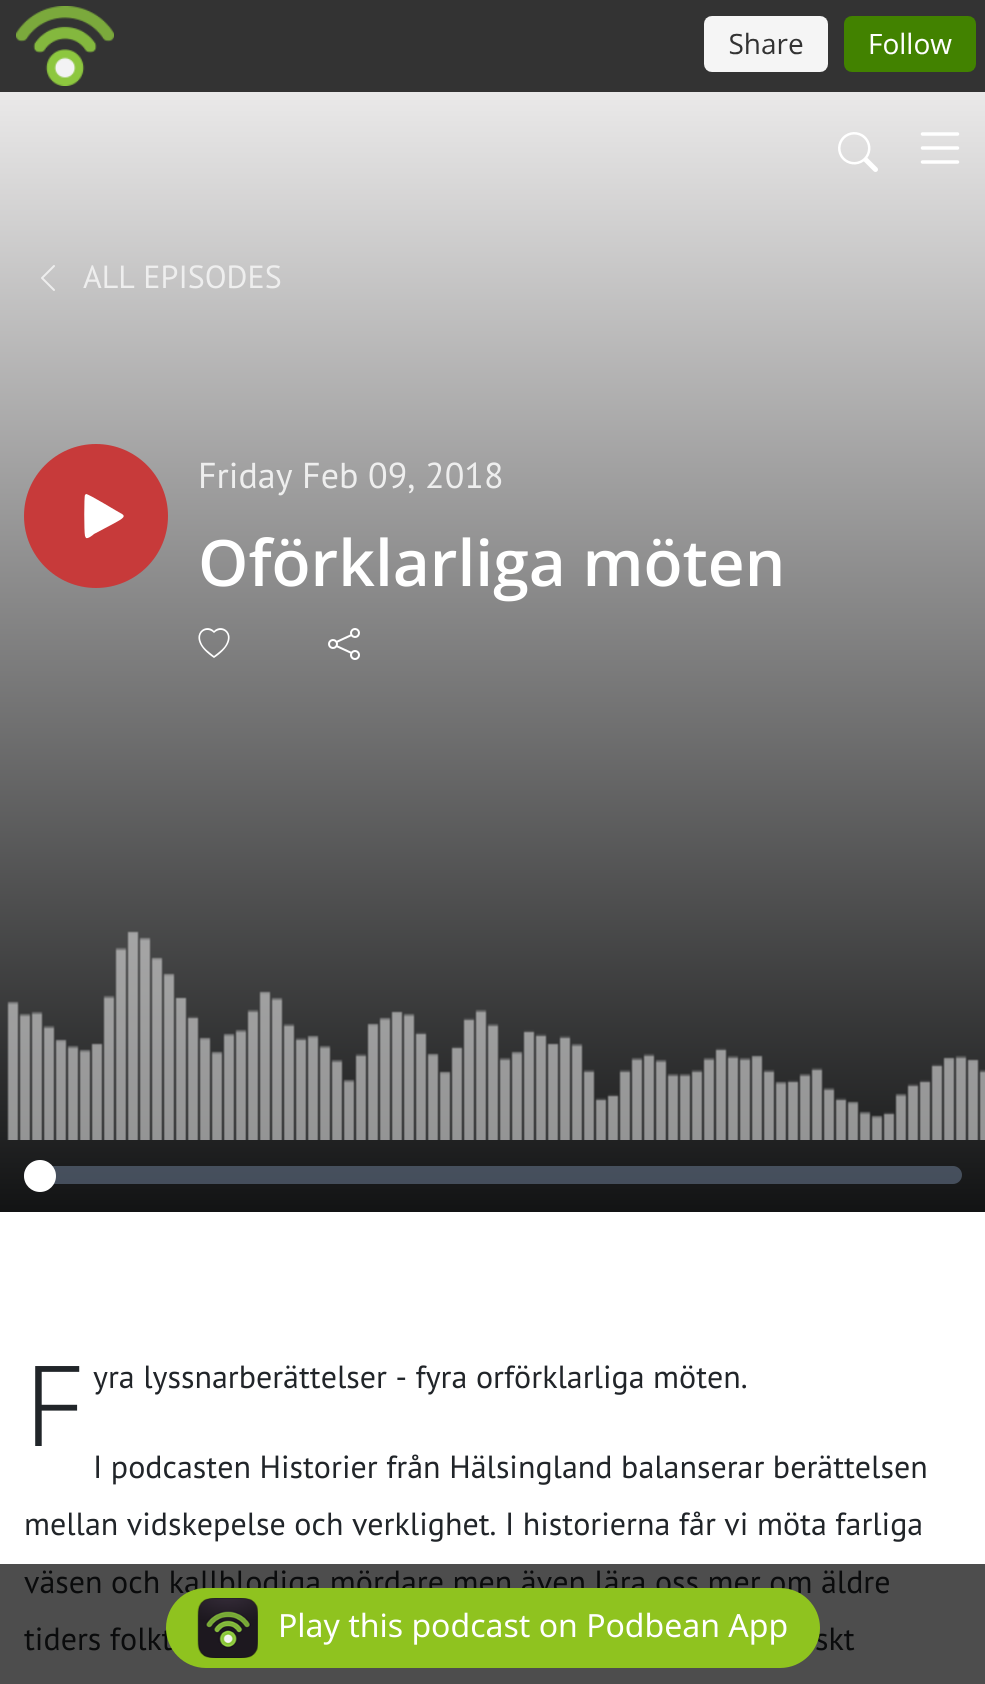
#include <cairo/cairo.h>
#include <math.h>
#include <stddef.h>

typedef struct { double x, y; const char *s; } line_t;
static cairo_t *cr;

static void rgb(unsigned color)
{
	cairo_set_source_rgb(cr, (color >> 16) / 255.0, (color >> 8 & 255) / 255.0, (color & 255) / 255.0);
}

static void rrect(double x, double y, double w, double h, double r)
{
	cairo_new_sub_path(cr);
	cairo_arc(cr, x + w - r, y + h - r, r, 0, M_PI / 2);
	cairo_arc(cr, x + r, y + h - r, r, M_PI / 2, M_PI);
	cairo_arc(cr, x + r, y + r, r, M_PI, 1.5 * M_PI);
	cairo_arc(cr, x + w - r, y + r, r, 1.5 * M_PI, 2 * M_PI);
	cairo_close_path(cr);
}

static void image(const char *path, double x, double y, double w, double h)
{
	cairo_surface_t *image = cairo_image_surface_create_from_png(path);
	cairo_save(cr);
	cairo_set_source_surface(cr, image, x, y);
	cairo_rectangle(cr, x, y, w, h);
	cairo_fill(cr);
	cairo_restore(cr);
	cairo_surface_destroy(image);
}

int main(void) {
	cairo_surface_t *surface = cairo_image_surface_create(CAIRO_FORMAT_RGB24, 985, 1684);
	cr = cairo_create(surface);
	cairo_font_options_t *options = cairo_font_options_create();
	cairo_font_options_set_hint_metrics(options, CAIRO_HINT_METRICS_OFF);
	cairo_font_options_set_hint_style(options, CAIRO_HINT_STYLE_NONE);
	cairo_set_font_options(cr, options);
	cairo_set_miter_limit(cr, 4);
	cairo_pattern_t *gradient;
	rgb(0xffffff);
	cairo_paint(cr);
	rgb(0x4d4d4d);
	cairo_rectangle(cr, 0, 1564, 985, 120);
	cairo_fill(cr);
	rgb(0x333333);
	cairo_rectangle(cr, 0, 0, 985, 92);
	cairo_fill(cr);
	image("img/1.png", 16, 6, 960, 80);
	gradient = cairo_pattern_create_linear(493, 92, 493, 1212);
	cairo_pattern_add_color_stop_rgba(gradient, 0, 0.918, 0.914, 0.914, 1);
	cairo_pattern_add_color_stop_rgba(gradient, 1, 0.071, 0.075, 0.078, 1);
	cairo_set_source(cr, gradient);
	cairo_pattern_destroy(gradient);
	cairo_rectangle(cr, 0, 92, 985, 1120);
	cairo_fill(cr);
	image("img/2.png", 838, 132, 40, 40);
	image("img/3.png", 920, 132, 40, 32);
	image("img/4.png", 41, 265, 14, 26);
	rgb(0xc73a3a);
	cairo_arc(cr, 96, 516, 72, 0, 2 * M_PI);
	cairo_fill(cr);
	rgb(0xffffff);
	cairo_new_path(cr);
	cairo_move_to(cr, 122, 514);
	cairo_curve_to(cr, 118, 512, 89, 494, 86, 494);
	cairo_line_to(cr, 85, 495);
	cairo_curve_to(cr, 84, 496, 84, 532, 85, 536);
	cairo_line_to(cr, 86, 538);
	cairo_curve_to(cr, 88, 539, 93, 535, 94, 534);
	cairo_line_to(cr, 111, 525);
	cairo_curve_to(cr, 120, 520, 127, 517, 122, 514);
	cairo_close_path(cr);
	cairo_fill(cr);
	cairo_new_path(cr);
	cairo_move_to(cr, 214, 633);
	cairo_curve_to(cr, 207, 626, 197, 632, 201, 642);
	cairo_curve_to(cr, 203, 648, 209, 652, 214, 656);
	cairo_curve_to(cr, 219, 652, 225, 648, 227, 642);
	cairo_curve_to(cr, 231, 632, 221, 626, 214, 633);
	cairo_close_path(cr);
	cairo_move_to(cr, 214, 658);
	cairo_curve_to(cr, 184, 638, 205, 621, 214, 631);
	cairo_curve_to(cr, 223, 621, 244, 638, 214, 658);
	cairo_close_path(cr);
	cairo_fill(cr);
	image("img/5.png", 328, 628, 32, 32);
	image("img/6.png", 7, 931, 978, 209);
	cairo_set_source_rgba(cr, 0.451, 0.522, 0.624, 0.5);
	rrect(24, 1166, 938, 18, 9);
	cairo_fill(cr);
	rgb(0xffffff);
	cairo_arc(cr, 40, 1176, 16, 0, 2 * M_PI);
	cairo_fill(cr);
	cairo_select_font_face(cr, "PT Sans", CAIRO_FONT_SLANT_NORMAL, CAIRO_FONT_WEIGHT_NORMAL);
	cairo_set_font_size(cr, 32);
	rgb(0xeeeeee);
	cairo_move_to(cr, 83, 288);
	cairo_show_text(cr, "ALL EPISODES");
	cairo_set_font_size(cr, 36);
	cairo_move_to(cr, 198, 488);
	cairo_show_text(cr, "Friday Feb 09, 2018");
	cairo_select_font_face(cr, "Open Sans SemiBold", CAIRO_FONT_SLANT_NORMAL, CAIRO_FONT_WEIGHT_NORMAL);
	cairo_set_font_size(cr, 64);
	rgb(0xffffff);
	cairo_move_to(cr, 198, 586);
	cairo_show_text(cr, "Oförklarliga möten");
	cairo_select_font_face(cr, "Noto Sans Light", CAIRO_FONT_SLANT_NORMAL, CAIRO_FONT_WEIGHT_NORMAL);
	cairo_set_font_size(cr, 112);
	rgb(0x212529);
	cairo_move_to(cr, 24, 1446);
	cairo_show_text(cr, "F");
	cairo_select_font_face(cr, "PT Sans", CAIRO_FONT_SLANT_NORMAL, CAIRO_FONT_WEIGHT_NORMAL);
	cairo_set_font_size(cr, 32);
	{
		static const line_t items[] = {
			{93, 1388, "yra lyssnarberättelser - fyra orförklarliga möten."},
			{93, 1478, "I podcasten Historier från Hälsingland balanserar berättelsen"},
			{24, 1535, "mellan vidskepelse och verklighet. I historierna får vi möta farliga"},
		};
		for (size_t i = 0; i < sizeof items / sizeof *items; i++) {
			cairo_move_to(cr, items[i].x, items[i].y);
			cairo_show_text(cr, items[i].s);
		}
	}
	rgb(0x0a0b0c);
	{
		static const line_t items[] = {
			{24, 1593, "väsen och kallblodiga mördare men även lära oss mer om äldre"},
			{24, 1650, "tiders folkt"},
			{815, 1650, "skt"},
		};
		for (size_t i = 0; i < sizeof items / sizeof *items; i++) {
			cairo_move_to(cr, items[i].x, items[i].y);
			cairo_show_text(cr, items[i].s);
		}
	}
	rgb(0x8fc31f);
	rrect(166, 1588, 654, 80, 40);
	cairo_fill(cr);
	image("img/7.png", 197, 1598, 61, 60);
	cairo_select_font_face(cr, "Noto Sans", CAIRO_FONT_SLANT_NORMAL, CAIRO_FONT_WEIGHT_NORMAL);
	rgb(0xffffff);
	cairo_move_to(cr, 278, 1637);
	cairo_show_text(cr, "Play this podcast on Podbean App");
	cairo_surface_write_to_png(surface, "page.png");
	cairo_font_options_destroy(options);
	cairo_destroy(cr);
	cairo_surface_destroy(surface);
	return 0;
}
